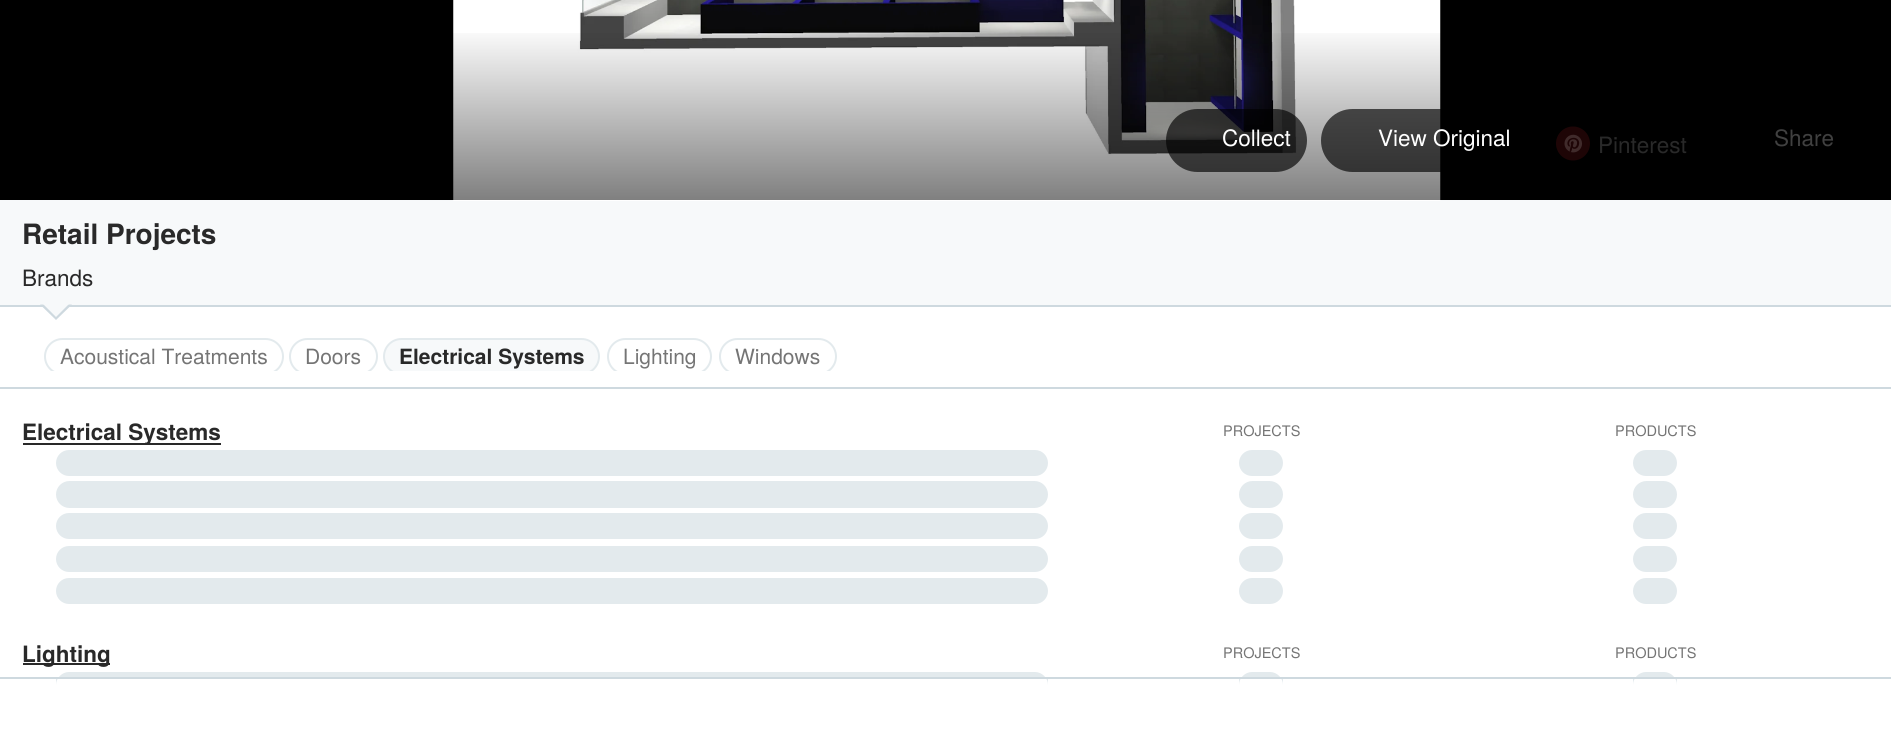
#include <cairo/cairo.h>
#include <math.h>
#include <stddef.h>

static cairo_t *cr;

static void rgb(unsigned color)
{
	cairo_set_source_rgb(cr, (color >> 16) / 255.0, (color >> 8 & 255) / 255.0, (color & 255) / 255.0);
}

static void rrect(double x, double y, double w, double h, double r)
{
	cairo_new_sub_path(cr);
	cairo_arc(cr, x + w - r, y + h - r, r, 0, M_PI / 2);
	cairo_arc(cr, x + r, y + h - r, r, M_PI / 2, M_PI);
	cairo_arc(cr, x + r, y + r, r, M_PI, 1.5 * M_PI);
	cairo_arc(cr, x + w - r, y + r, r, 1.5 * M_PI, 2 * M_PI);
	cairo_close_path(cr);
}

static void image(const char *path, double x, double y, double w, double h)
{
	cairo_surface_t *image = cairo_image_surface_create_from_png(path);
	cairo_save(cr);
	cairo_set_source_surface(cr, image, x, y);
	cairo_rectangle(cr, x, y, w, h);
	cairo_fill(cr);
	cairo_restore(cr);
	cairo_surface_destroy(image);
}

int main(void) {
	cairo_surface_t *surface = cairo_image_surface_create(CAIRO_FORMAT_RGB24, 1891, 739);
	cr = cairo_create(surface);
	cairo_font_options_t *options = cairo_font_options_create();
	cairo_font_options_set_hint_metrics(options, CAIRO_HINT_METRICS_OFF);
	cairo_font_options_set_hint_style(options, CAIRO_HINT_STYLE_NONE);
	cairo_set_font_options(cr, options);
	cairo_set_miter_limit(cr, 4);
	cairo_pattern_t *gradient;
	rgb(0xffffff);
	cairo_paint(cr);
	rgb(0x000000);
	cairo_rectangle(cr, 0, 0, 1891, 200);
	cairo_fill(cr);
	rgb(0xf7f9fa);
	cairo_rectangle(cr, 0, 200, 1891, 105);
	cairo_fill(cr);
	image("img/1.png", 453, 0, 988, 201);
	gradient = cairo_pattern_create_linear(946, 200, 946, 25);
	cairo_pattern_add_color_stop_rgba(gradient, 0, 0, 0, 0, 0.5);
	cairo_pattern_add_color_stop_rgba(gradient, 1, 0, 0, 0, 0);
	cairo_set_source(cr, gradient);
	cairo_pattern_destroy(gradient);
	cairo_rectangle(cr, 453, 33, 988, 167);
	cairo_fill(cr);
	cairo_set_source_rgba(cr, 0, 0, 0, 0.65);
	rrect(1166, 109, 141, 63, 31.5);
	cairo_fill(cr);
	rrect(1321, 109, 205, 63, 31.5);
	cairo_fill(cr);
	image("img/2.png", 1556, 126, 34, 35);
	rgb(0xced9df);
	cairo_rectangle(cr, 0, 305, 1891, 2);
	cairo_fill(cr);
	cairo_new_path(cr);
	cairo_move_to(cr, 40, 304.5);
	cairo_line_to(cr, 72, 304.5);
	cairo_line_to(cr, 56, 320);
	cairo_close_path(cr);
	cairo_fill(cr);
	rgb(0xf7f9fa);
	cairo_new_path(cr);
	cairo_move_to(cr, 42, 303);
	cairo_line_to(cr, 70, 303);
	cairo_line_to(cr, 56, 317);
	cairo_close_path(cr);
	cairo_fill(cr);
	cairo_save(cr);
	cairo_rectangle(cr, 44, 327, 1804, 44);
	cairo_clip(cr);
	rrect(45, 339, 238, 35, 17.5);
	rgb(0xe3eaed);
	cairo_stroke(cr);
	rrect(290, 339, 87, 35, 17.5);
	cairo_stroke(cr);
	rgb(0xf7f9fa);
	rrect(384, 339, 215, 35, 17.5);
	cairo_fill_preserve(cr);
	rgb(0xe3eaed);
	cairo_stroke(cr);
	rrect(608, 339, 103, 35, 17.5);
	cairo_stroke(cr);
	rrect(720, 339, 116, 35, 17.5);
	cairo_stroke(cr);
	cairo_restore(cr);
	rgb(0xced9df);
	cairo_rectangle(cr, 0, 387, 1891, 2);
	cairo_fill(cr);
	rgb(0x292929);
	cairo_rectangle(cr, 23, 443, 198, 2);
	cairo_fill(cr);
	rgb(0xe3eaed);
	rrect(56, 450, 992, 26, 13);
	cairo_fill(cr);
	rrect(1239, 450, 44, 26, 13);
	cairo_fill(cr);
	rrect(1633, 450, 44, 26, 13);
	cairo_fill(cr);
	rrect(56, 481, 992, 27, 13.5);
	cairo_fill(cr);
	rrect(1239, 481, 44, 27, 13.5);
	cairo_fill(cr);
	rrect(1633, 481, 44, 27, 13.5);
	cairo_fill(cr);
	rrect(56, 513, 992, 26, 13);
	cairo_fill(cr);
	rrect(1239, 513, 44, 26, 13);
	cairo_fill(cr);
	rrect(1633, 513, 44, 26, 13);
	cairo_fill(cr);
	rrect(56, 546, 992, 26, 13);
	cairo_fill(cr);
	rrect(1239, 546, 44, 26, 13);
	cairo_fill(cr);
	rrect(1633, 546, 44, 26, 13);
	cairo_fill(cr);
	rrect(56, 578, 992, 26, 13);
	cairo_fill(cr);
	rrect(1239, 578, 44, 26, 13);
	cairo_fill(cr);
	rrect(1633, 578, 44, 26, 13);
	cairo_fill(cr);
	rgb(0x292929);
	cairo_rectangle(cr, 23, 663, 87, 2);
	cairo_fill(cr);
	rgb(0xe3eaed);
	cairo_new_path(cr);
	cairo_move_to(cr, 69, 672);
	cairo_line_to(cr, 1035, 672);
	cairo_curve_to(cr, 1042, 672, 1048, 678, 1048, 685);
	cairo_line_to(cr, 1048, 677);
	cairo_line_to(cr, 56, 677);
	cairo_line_to(cr, 56, 685);
	cairo_curve_to(cr, 56, 678, 62, 672, 69, 672);
	cairo_close_path(cr);
	cairo_fill(cr);
	cairo_new_path(cr);
	cairo_move_to(cr, 1252, 672);
	cairo_line_to(cr, 1270, 672);
	cairo_curve_to(cr, 1277, 672, 1283, 678, 1283, 685);
	cairo_line_to(cr, 1283, 677);
	cairo_line_to(cr, 1239, 677);
	cairo_line_to(cr, 1239, 685);
	cairo_curve_to(cr, 1239, 678, 1245, 672, 1252, 672);
	cairo_close_path(cr);
	cairo_fill(cr);
	cairo_new_path(cr);
	cairo_move_to(cr, 1646, 672);
	cairo_line_to(cr, 1664, 672);
	cairo_curve_to(cr, 1671, 672, 1677, 678, 1677, 685);
	cairo_line_to(cr, 1677, 677);
	cairo_line_to(cr, 1633, 677);
	cairo_line_to(cr, 1633, 685);
	cairo_curve_to(cr, 1633, 678, 1639, 672, 1646, 672);
	cairo_close_path(cr);
	cairo_fill(cr);
	rgb(0xced9df);
	cairo_rectangle(cr, 0, 677, 1891, 2);
	cairo_fill(cr);
	cairo_select_font_face(cr, "TeX Gyre Heros", CAIRO_FONT_SLANT_NORMAL, CAIRO_FONT_WEIGHT_NORMAL);
	cairo_set_font_size(cr, 22.5);
	rgb(0xffffff);
	cairo_move_to(cr, 1222, 146);
	cairo_show_text(cr, "Collect");
	cairo_move_to(cr, 1378, 146);
	cairo_show_text(cr, "View Original");
	rgb(0x292929);
	cairo_move_to(cr, 1598, 153);
	cairo_show_text(cr, "Pinterest");
	rgb(0x404040);
	cairo_move_to(cr, 1774, 146);
	cairo_show_text(cr, "Share");
	cairo_select_font_face(cr, "TeX Gyre Heros", CAIRO_FONT_SLANT_NORMAL, CAIRO_FONT_WEIGHT_BOLD);
	cairo_set_font_size(cr, 28);
	rgb(0x292929);
	cairo_move_to(cr, 22, 244);
	cairo_show_text(cr, "Retail Projects");
	cairo_select_font_face(cr, "TeX Gyre Heros", CAIRO_FONT_SLANT_NORMAL, CAIRO_FONT_WEIGHT_NORMAL);
	cairo_set_font_size(cr, 22.5);
	cairo_move_to(cr, 22, 286);
	cairo_show_text(cr, "Brands");
	cairo_set_font_size(cr, 21);
	rgb(0x757575);
	cairo_move_to(cr, 60, 364);
	cairo_show_text(cr, "Acoustical Treatments");
	cairo_move_to(cr, 305, 364);
	cairo_show_text(cr, "Doors");
	cairo_select_font_face(cr, "TeX Gyre Heros", CAIRO_FONT_SLANT_NORMAL, CAIRO_FONT_WEIGHT_BOLD);
	rgb(0x292929);
	cairo_move_to(cr, 399, 364);
	cairo_show_text(cr, "Electrical Systems");
	cairo_select_font_face(cr, "TeX Gyre Heros", CAIRO_FONT_SLANT_NORMAL, CAIRO_FONT_WEIGHT_NORMAL);
	rgb(0x757575);
	cairo_move_to(cr, 623, 364);
	cairo_show_text(cr, "Lighting");
	cairo_move_to(cr, 735, 364);
	cairo_show_text(cr, "Windows");
	cairo_select_font_face(cr, "TeX Gyre Heros", CAIRO_FONT_SLANT_NORMAL, CAIRO_FONT_WEIGHT_BOLD);
	cairo_set_font_size(cr, 22.5);
	rgb(0x292929);
	cairo_move_to(cr, 22, 440);
	cairo_show_text(cr, "Electrical Systems");
	cairo_select_font_face(cr, "TeX Gyre Heros", CAIRO_FONT_SLANT_NORMAL, CAIRO_FONT_WEIGHT_NORMAL);
	cairo_set_font_size(cr, 14.5);
	rgb(0x757575);
	cairo_move_to(cr, 1223, 436);
	cairo_show_text(cr, "PROJECTS");
	cairo_move_to(cr, 1615, 436);
	cairo_show_text(cr, "PRODUCTS");
	cairo_select_font_face(cr, "TeX Gyre Heros", CAIRO_FONT_SLANT_NORMAL, CAIRO_FONT_WEIGHT_BOLD);
	cairo_set_font_size(cr, 22.5);
	rgb(0x292929);
	cairo_move_to(cr, 22, 662);
	cairo_show_text(cr, "Lighting");
	cairo_select_font_face(cr, "TeX Gyre Heros", CAIRO_FONT_SLANT_NORMAL, CAIRO_FONT_WEIGHT_NORMAL);
	cairo_set_font_size(cr, 14.5);
	rgb(0x757575);
	cairo_move_to(cr, 1223, 658);
	cairo_show_text(cr, "PROJECTS");
	cairo_move_to(cr, 1615, 658);
	cairo_show_text(cr, "PRODUCTS");
	cairo_surface_write_to_png(surface, "page.png");
	cairo_font_options_destroy(options);
	cairo_destroy(cr);
	cairo_surface_destroy(surface);
	return 0;
}
